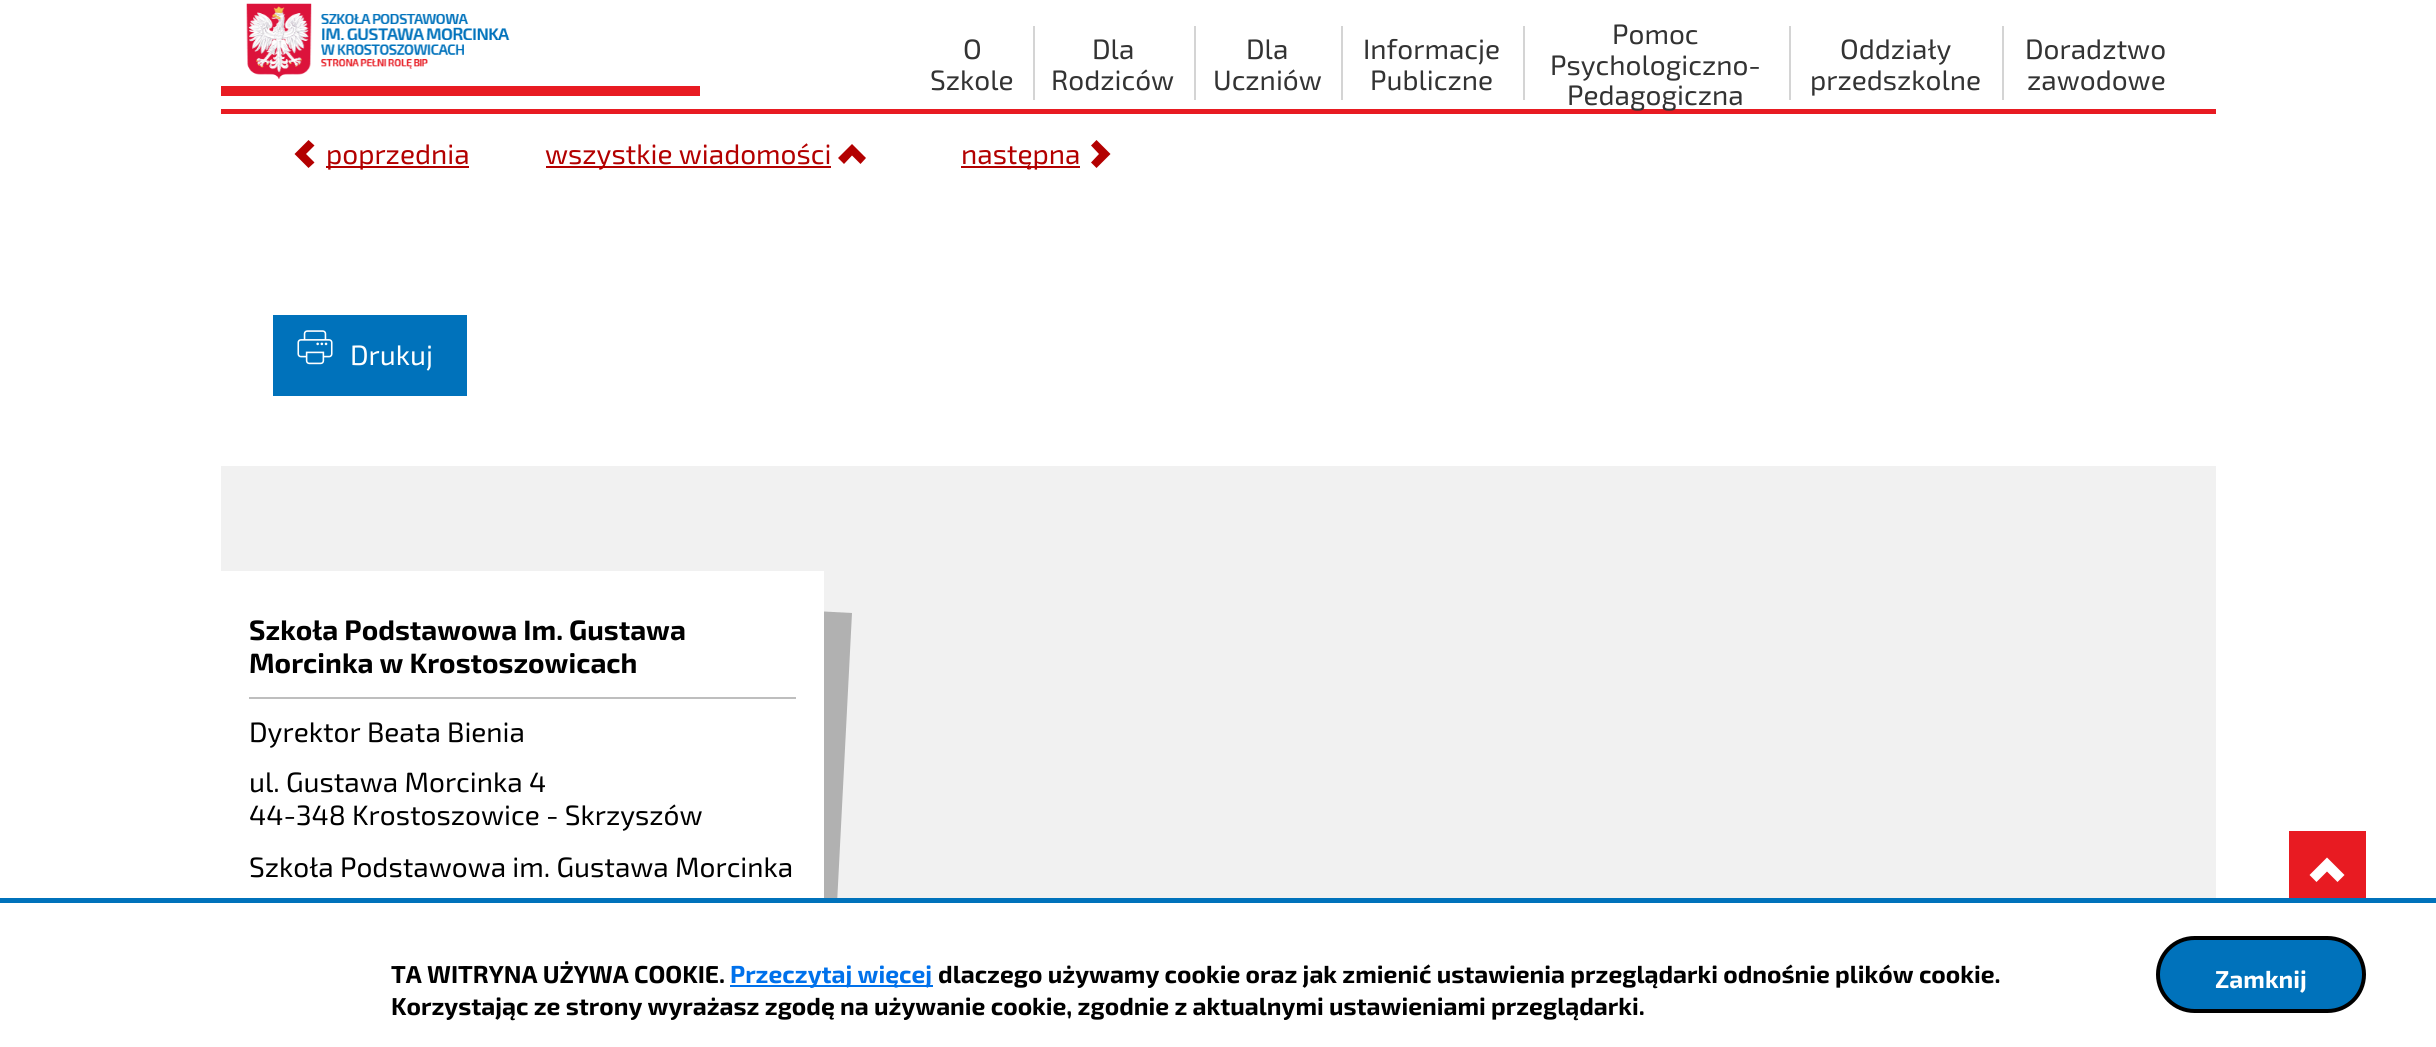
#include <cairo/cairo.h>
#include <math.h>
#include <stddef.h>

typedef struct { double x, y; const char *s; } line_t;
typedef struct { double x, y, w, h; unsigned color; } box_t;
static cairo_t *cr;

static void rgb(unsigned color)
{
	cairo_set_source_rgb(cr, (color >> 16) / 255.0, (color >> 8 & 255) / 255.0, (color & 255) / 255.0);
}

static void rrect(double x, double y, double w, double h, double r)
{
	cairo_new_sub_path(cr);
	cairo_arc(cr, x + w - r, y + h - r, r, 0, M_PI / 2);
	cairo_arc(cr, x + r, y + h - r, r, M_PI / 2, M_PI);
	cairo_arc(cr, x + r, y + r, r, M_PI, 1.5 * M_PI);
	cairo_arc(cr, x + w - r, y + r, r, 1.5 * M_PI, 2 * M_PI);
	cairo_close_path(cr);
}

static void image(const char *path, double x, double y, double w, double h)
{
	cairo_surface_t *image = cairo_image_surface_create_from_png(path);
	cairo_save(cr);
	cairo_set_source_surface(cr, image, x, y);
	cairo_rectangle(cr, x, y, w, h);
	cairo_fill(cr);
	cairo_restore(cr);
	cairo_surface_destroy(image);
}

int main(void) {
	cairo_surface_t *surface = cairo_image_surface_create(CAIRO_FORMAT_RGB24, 2436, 1047);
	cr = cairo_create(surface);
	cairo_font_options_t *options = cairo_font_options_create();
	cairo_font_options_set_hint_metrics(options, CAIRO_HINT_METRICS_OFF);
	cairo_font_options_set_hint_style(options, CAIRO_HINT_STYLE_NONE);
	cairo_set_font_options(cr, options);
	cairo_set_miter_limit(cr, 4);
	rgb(0xffffff);
	cairo_paint(cr);
	image("img/1.png", 246, 3, 264, 76);
	{
		static const box_t items[] = {
			{221, 86, 479, 10, 0xe81b22},
			{1033, 26, 2, 74, 0xd4d4d4},
			{1194, 26, 2, 74, 0xd4d4d4},
			{1341, 26, 2, 74, 0xd4d4d4},
			{1523, 26, 2, 74, 0xd4d4d4},
			{1789, 26, 2, 74, 0xd4d4d4},
			{2002, 26, 2, 74, 0xd4d4d4},
			{221, 109, 1995, 5, 0xe81b22},
		};
		for (size_t i = 0; i < sizeof items / sizeof *items; i++) {
			rgb(items[i].color);
			cairo_rectangle(cr, items[i].x, items[i].y, items[i].w, items[i].h);
			cairo_fill(cr);
		}
	}
	rgb(0xb30000);
	cairo_new_path(cr);
	cairo_move_to(cr, 306, 154);
	cairo_line_to(cr, 314.5, 145.5);
	cairo_line_to(cr, 308.5, 140);
	cairo_line_to(cr, 294.5, 154);
	cairo_line_to(cr, 308.5, 168);
	cairo_line_to(cr, 314.5, 162.5);
	cairo_close_path(cr);
	cairo_fill(cr);
	cairo_rectangle(cr, 326, 166, 143, 2);
	cairo_fill(cr);
	cairo_rectangle(cr, 546, 166, 285, 2);
	cairo_fill(cr);
	cairo_new_path(cr);
	cairo_move_to(cr, 852, 155.5);
	cairo_line_to(cr, 844, 164);
	cairo_line_to(cr, 838, 158);
	cairo_line_to(cr, 852, 144);
	cairo_line_to(cr, 866, 158);
	cairo_line_to(cr, 860.5, 164);
	cairo_close_path(cr);
	cairo_fill(cr);
	cairo_rectangle(cr, 961, 166, 119, 2);
	cairo_fill(cr);
	cairo_new_path(cr);
	cairo_move_to(cr, 1099, 154);
	cairo_line_to(cr, 1091, 145.5);
	cairo_line_to(cr, 1096.5, 140);
	cairo_line_to(cr, 1110.5, 154);
	cairo_line_to(cr, 1096.5, 168);
	cairo_line_to(cr, 1091, 162.5);
	cairo_close_path(cr);
	cairo_fill(cr);
	rgb(0x0072bb);
	cairo_rectangle(cr, 273, 315, 194, 81);
	cairo_fill(cr);
	image("img/2.png", 297, 330, 36, 35);
	rgb(0xf1f1f1);
	cairo_rectangle(cr, 221, 466, 1995, 432);
	cairo_fill(cr);
	rgb(0xb1b1b1);
	cairo_new_path(cr);
	cairo_move_to(cr, 255, 582);
	cairo_line_to(cr, 852, 613);
	cairo_line_to(cr, 820, 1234);
	cairo_line_to(cr, 222, 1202);
	cairo_close_path(cr);
	cairo_fill(cr);
	{
		static const box_t items[] = {
			{221, 571, 603, 327, 0xffffff},
			{249, 697, 547, 2, 0xbebebe},
			{2289, 831, 77, 67, 0xe81b22},
		};
		for (size_t i = 0; i < sizeof items / sizeof *items; i++) {
			rgb(items[i].color);
			cairo_rectangle(cr, items[i].x, items[i].y, items[i].w, items[i].h);
			cairo_fill(cr);
		}
	}
	rgb(0xffffff);
	cairo_new_path(cr);
	cairo_move_to(cr, 2327, 871.5);
	cairo_line_to(cr, 2337.5, 882);
	cairo_line_to(cr, 2344.5, 875);
	cairo_line_to(cr, 2327, 857.5);
	cairo_line_to(cr, 2309.5, 875);
	cairo_line_to(cr, 2316.5, 882);
	cairo_close_path(cr);
	cairo_fill(cr);
	{
		static const box_t items[] = {
			{230, 903, 607, 144, 0xffffff},
			{0, 898, 2436, 5, 0x0072bb},
			{730, 985, 203, 2, 0x0071eb},
		};
		for (size_t i = 0; i < sizeof items / sizeof *items; i++) {
			rgb(items[i].color);
			cairo_rectangle(cr, items[i].x, items[i].y, items[i].w, items[i].h);
			cairo_fill(cr);
		}
	}
	rgb(0x0072bb);
	rrect(2158, 938, 206, 73, 36.5);
	cairo_fill_preserve(cr);
	rgb(0x000000);
	cairo_set_line_width(cr, 4);
	cairo_stroke(cr);
	cairo_select_font_face(cr, "Exo 2", CAIRO_FONT_SLANT_NORMAL, CAIRO_FONT_WEIGHT_NORMAL);
	cairo_set_font_size(cr, 28);
	rgb(0x333333);
	{
		static const line_t items[] = {
			{963, 59, "O"},
			{930, 90, "Szkole"},
			{1092, 59, "Dla"},
			{1051, 90, "Rodziców"},
			{1246, 59, "Dla"},
			{1213, 90, "Uczniów"},
			{1363, 59, "Informacje"},
			{1370, 90, "Publiczne"},
			{1612, 44, "Pomoc"},
			{1550, 75, "Psychologiczno-"},
			{1567, 105, "Pedagogiczna"},
			{1840, 59, "Oddziały"},
			{1810, 90, "przedszkolne"},
			{2025, 59, "Doradztwo"},
			{2027, 90, "zawodowe"},
		};
		for (size_t i = 0; i < sizeof items / sizeof *items; i++) {
			cairo_move_to(cr, items[i].x, items[i].y);
			cairo_show_text(cr, items[i].s);
		}
	}
	rgb(0xb30000);
	{
		static const line_t items[] = {
			{326, 164, "poprzednia"},
			{545, 164, "wszystkie wiadomości"},
			{961, 164, "następna"},
		};
		for (size_t i = 0; i < sizeof items / sizeof *items; i++) {
			cairo_move_to(cr, items[i].x, items[i].y);
			cairo_show_text(cr, items[i].s);
		}
	}
	rgb(0xffffff);
	cairo_move_to(cr, 350, 365);
	cairo_show_text(cr, "Drukuj");
	cairo_select_font_face(cr, "Exo 2", CAIRO_FONT_SLANT_NORMAL, CAIRO_FONT_WEIGHT_BOLD);
	rgb(0x000000);
	cairo_move_to(cr, 249, 640);
	cairo_show_text(cr, "Szkoła Podstawowa Im. Gustawa");
	cairo_move_to(cr, 249, 673);
	cairo_show_text(cr, "Morcinka w Krostoszowicach");
	cairo_select_font_face(cr, "Exo 2", CAIRO_FONT_SLANT_NORMAL, CAIRO_FONT_WEIGHT_NORMAL);
	{
		static const line_t items[] = {
			{249, 742, "Dyrektor Beata Bienia"},
			{249, 792, "ul. Gustawa Morcinka 4"},
			{249, 825, "44-348 Krostoszowice - Skrzyszów"},
			{249, 877, "Szkoła Podstawowa im. Gustawa Morcinka"},
		};
		for (size_t i = 0; i < sizeof items / sizeof *items; i++) {
			cairo_move_to(cr, items[i].x, items[i].y);
			cairo_show_text(cr, items[i].s);
		}
	}
	cairo_select_font_face(cr, "Exo 2", CAIRO_FONT_SLANT_NORMAL, CAIRO_FONT_WEIGHT_BOLD);
	cairo_set_font_size(cr, 24.5);
	cairo_move_to(cr, 391, 983);
	cairo_show_text(cr, "TA WITRYNA UŻYWA COOKIE.");
	rgb(0x0071eb);
	cairo_move_to(cr, 730, 983);
	cairo_show_text(cr, "Przeczytaj więcej");
	rgb(0x000000);
	cairo_move_to(cr, 938, 983);
	cairo_show_text(cr, "dlaczego używamy cookie oraz jak zmienić ustawienia przeglądarki odnośnie plików cookie.");
	cairo_move_to(cr, 391, 1015);
	cairo_show_text(cr, "Korzystając ze strony wyrażasz zgodę na używanie cookie, zgodnie z aktualnymi ustawieniami przeglądarki.");
	rgb(0xffffff);
	cairo_move_to(cr, 2215, 988);
	cairo_show_text(cr, "Zamknij");
	cairo_surface_write_to_png(surface, "page.png");
	cairo_font_options_destroy(options);
	cairo_destroy(cr);
	cairo_surface_destroy(surface);
	return 0;
}
